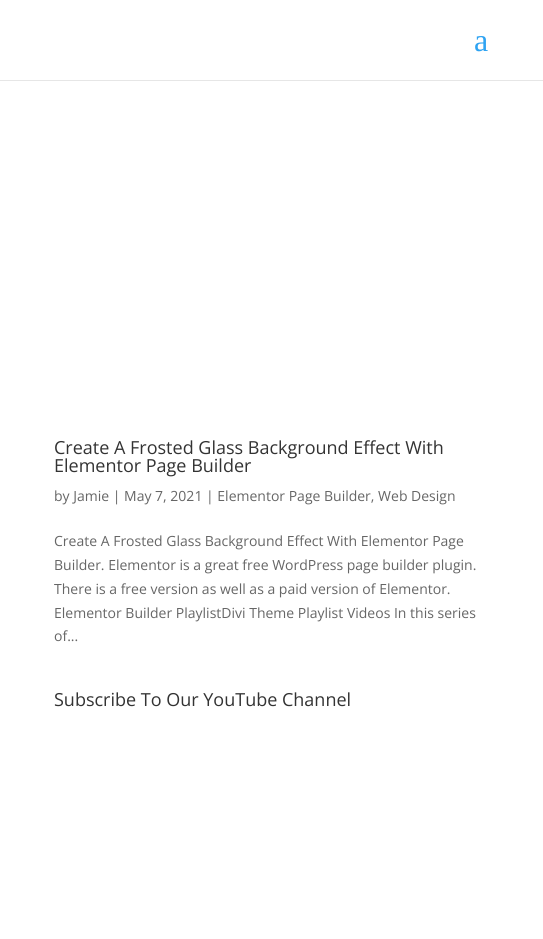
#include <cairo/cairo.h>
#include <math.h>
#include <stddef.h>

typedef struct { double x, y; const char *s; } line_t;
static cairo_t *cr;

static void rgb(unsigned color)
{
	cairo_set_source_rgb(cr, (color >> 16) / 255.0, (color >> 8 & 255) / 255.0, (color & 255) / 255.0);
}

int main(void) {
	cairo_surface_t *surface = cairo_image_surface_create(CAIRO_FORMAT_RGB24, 543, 939);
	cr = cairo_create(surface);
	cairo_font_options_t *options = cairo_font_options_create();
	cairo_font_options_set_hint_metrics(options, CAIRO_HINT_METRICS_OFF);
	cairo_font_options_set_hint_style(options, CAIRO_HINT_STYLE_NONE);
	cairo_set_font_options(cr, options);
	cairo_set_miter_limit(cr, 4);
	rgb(0xffffff);
	cairo_paint(cr);
	rgb(0xe6e6e6);
	cairo_rectangle(cr, 0, 80, 543, 1);
	cairo_fill(cr);
	cairo_select_font_face(cr, "Liberation Serif", CAIRO_FONT_SLANT_NORMAL, CAIRO_FONT_WEIGHT_NORMAL);
	cairo_set_font_size(cr, 32);
	rgb(0x2ea3f2);
	cairo_move_to(cr, 474, 51);
	cairo_show_text(cr, "a");
	cairo_select_font_face(cr, "Open Sans", CAIRO_FONT_SLANT_NORMAL, CAIRO_FONT_WEIGHT_NORMAL);
	cairo_set_font_size(cr, 18);
	rgb(0x333333);
	cairo_move_to(cr, 54, 454);
	cairo_show_text(cr, "Create A Frosted Glass Background Effect With");
	cairo_move_to(cr, 54, 472);
	cairo_show_text(cr, "Elementor Page Builder");
	cairo_set_font_size(cr, 14);
	rgb(0x666666);
	{
		static const line_t items[] = {
			{54, 501, "by Jamie | May 7, 2021 | Elementor Page Builder, Web Design"},
			{54, 546, "Create A Frosted Glass Background Effect With Elementor Page"},
			{54, 570, "Builder. Elementor is a great free WordPress page builder plugin."},
			{54, 594, "There is a free version as well as a paid version of Elementor."},
			{54, 618, "Elementor Builder PlaylistDivi Theme Playlist Videos In this series"},
			{54, 641, "of..."},
		};
		for (size_t i = 0; i < sizeof items / sizeof *items; i++) {
			cairo_move_to(cr, items[i].x, items[i].y);
			cairo_show_text(cr, items[i].s);
		}
	}
	cairo_set_font_size(cr, 18);
	rgb(0x333333);
	cairo_move_to(cr, 54, 706);
	cairo_show_text(cr, "Subscribe To Our YouTube Channel");
	cairo_surface_write_to_png(surface, "page.png");
	cairo_font_options_destroy(options);
	cairo_destroy(cr);
	cairo_surface_destroy(surface);
	return 0;
}
